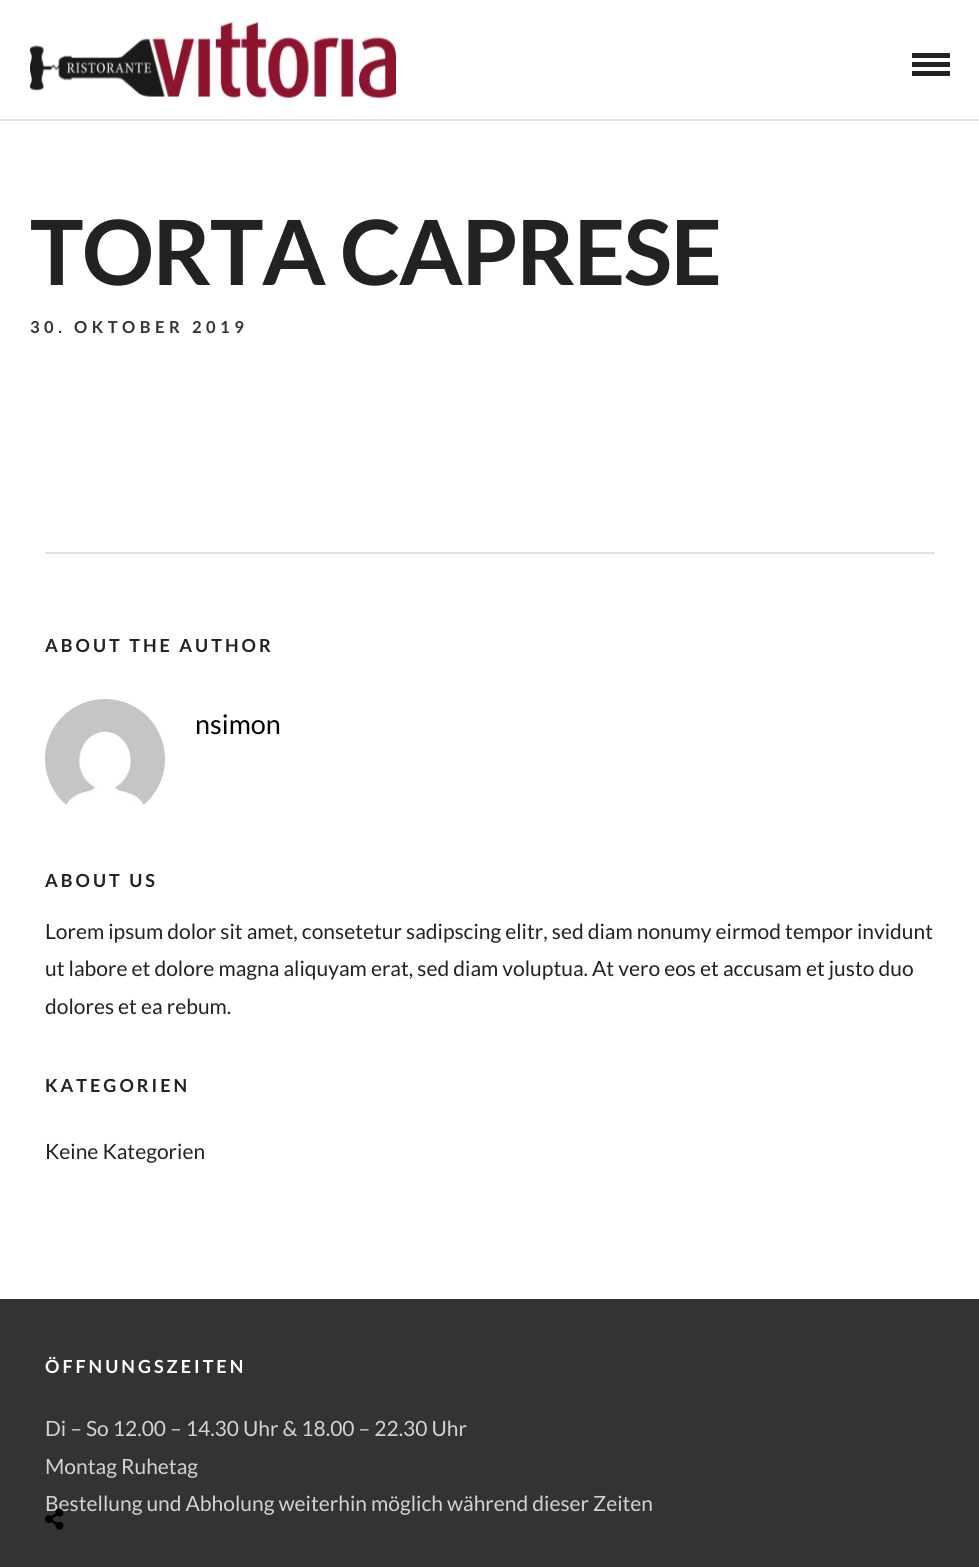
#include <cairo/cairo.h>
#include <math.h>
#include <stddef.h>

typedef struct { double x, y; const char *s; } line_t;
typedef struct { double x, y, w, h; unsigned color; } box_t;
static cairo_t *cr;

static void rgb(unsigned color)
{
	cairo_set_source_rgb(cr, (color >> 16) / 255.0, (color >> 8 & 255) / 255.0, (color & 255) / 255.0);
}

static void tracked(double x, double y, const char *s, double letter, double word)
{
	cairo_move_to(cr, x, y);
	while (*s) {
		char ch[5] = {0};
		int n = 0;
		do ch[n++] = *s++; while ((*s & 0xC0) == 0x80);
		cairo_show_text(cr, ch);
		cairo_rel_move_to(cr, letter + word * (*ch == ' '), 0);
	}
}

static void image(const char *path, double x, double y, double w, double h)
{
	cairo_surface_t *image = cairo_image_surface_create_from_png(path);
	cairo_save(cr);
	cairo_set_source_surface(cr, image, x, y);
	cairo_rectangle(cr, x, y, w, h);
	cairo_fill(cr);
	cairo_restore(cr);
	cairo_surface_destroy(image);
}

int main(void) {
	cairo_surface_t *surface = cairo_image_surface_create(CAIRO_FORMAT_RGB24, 979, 1567);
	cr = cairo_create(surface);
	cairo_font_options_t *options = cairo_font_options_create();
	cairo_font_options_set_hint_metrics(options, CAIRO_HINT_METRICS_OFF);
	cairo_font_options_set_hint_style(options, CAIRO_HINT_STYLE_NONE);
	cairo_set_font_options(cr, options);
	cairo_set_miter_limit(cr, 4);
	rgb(0xffffff);
	cairo_paint(cr);
	rgb(0xe1e1e1);
	cairo_rectangle(cr, 0, 119, 979, 2);
	cairo_fill(cr);
	image("img/1.png", 30, 22, 366, 76);
	{
		static const box_t items[] = {
			{912, 53, 38, 5, 0x222222},
			{912, 62, 38, 5, 0x222222},
			{912, 71, 38, 5, 0x222222},
			{45, 552, 890, 2, 0xe1e1e1},
		};
		for (size_t i = 0; i < sizeof items / sizeof *items; i++) {
			rgb(items[i].color);
			cairo_rectangle(cr, items[i].x, items[i].y, items[i].w, items[i].h);
			cairo_fill(cr);
		}
	}
	image("img/2.png", 45, 699, 120, 106);
	rgb(0x333333);
	cairo_rectangle(cr, 0, 1299, 979, 268);
	cairo_fill(cr);
	cairo_select_font_face(cr, "Lato", CAIRO_FONT_SLANT_NORMAL, CAIRO_FONT_WEIGHT_BOLD);
	cairo_set_font_size(cr, 90);
	rgb(0x222222);
	tracked(30, 285, "TORTA CAPRESE", -1.5, 0);
	cairo_set_font_size(cr, 16.5);
	rgb(0x333333);
	tracked(30, 333, "30. OKTOBER 2019", 4.5, 0);
	cairo_set_font_size(cr, 18);
	rgb(0x222222);
	tracked(45, 652, "ABOUT THE AUTHOR", 3, 0);
	cairo_select_font_face(cr, "Lato", CAIRO_FONT_SLANT_NORMAL, CAIRO_FONT_WEIGHT_NORMAL);
	cairo_set_font_size(cr, 27);
	rgb(0x000000);
	cairo_move_to(cr, 195, 734);
	cairo_show_text(cr, "nsimon");
	cairo_select_font_face(cr, "Lato", CAIRO_FONT_SLANT_NORMAL, CAIRO_FONT_WEIGHT_BOLD);
	cairo_set_font_size(cr, 18);
	rgb(0x222222);
	tracked(45, 887, "ABOUT US", 3, 0);
	cairo_select_font_face(cr, "Lato", CAIRO_FONT_SLANT_NORMAL, CAIRO_FONT_WEIGHT_NORMAL);
	cairo_set_font_size(cr, 21);
	{
		static const line_t items[] = {
			{45, 939, "Lorem ipsum dolor sit amet, consetetur sadipscing elitr, sed diam nonumy eirmod tempor invidunt"},
			{45, 976, "ut labore et dolore magna aliquyam erat, sed diam voluptua. At vero eos et accusam et justo duo"},
			{45, 1014, "dolores et ea rebum."},
		};
		for (size_t i = 0; i < sizeof items / sizeof *items; i++) {
			cairo_move_to(cr, items[i].x, items[i].y);
			cairo_show_text(cr, items[i].s);
		}
	}
	cairo_select_font_face(cr, "Lato", CAIRO_FONT_SLANT_NORMAL, CAIRO_FONT_WEIGHT_BOLD);
	cairo_set_font_size(cr, 18);
	tracked(45, 1092, "KATEGORIEN", 3, 0);
	cairo_select_font_face(cr, "Lato", CAIRO_FONT_SLANT_NORMAL, CAIRO_FONT_WEIGHT_NORMAL);
	cairo_set_font_size(cr, 21);
	cairo_move_to(cr, 45, 1159);
	cairo_show_text(cr, "Keine Kategorien");
	cairo_select_font_face(cr, "Lato", CAIRO_FONT_SLANT_NORMAL, CAIRO_FONT_WEIGHT_BOLD);
	cairo_set_font_size(cr, 18);
	rgb(0xffffff);
	tracked(45, 1373, "ÖFFNUNGSZEITEN", 3, 0);
	cairo_select_font_face(cr, "Lato", CAIRO_FONT_SLANT_NORMAL, CAIRO_FONT_WEIGHT_NORMAL);
	cairo_set_font_size(cr, 21);
	rgb(0xd3d3d3);
	{
		static const line_t items[] = {
			{45, 1436, "Di – So 12.00 – 14.30 Uhr & 18.00 – 22.30 Uhr"},
			{45, 1474, "Montag Ruhetag"},
			{45, 1511, "Bestellung und Abholung weiterhin möglich während dieser Zeiten"},
		};
		for (size_t i = 0; i < sizeof items / sizeof *items; i++) {
			cairo_move_to(cr, items[i].x, items[i].y);
			cairo_show_text(cr, items[i].s);
		}
	}
	image("img/3.png", 45, 1508, 19, 22);
	cairo_surface_write_to_png(surface, "page.png");
	cairo_font_options_destroy(options);
	cairo_destroy(cr);
	cairo_surface_destroy(surface);
	return 0;
}
